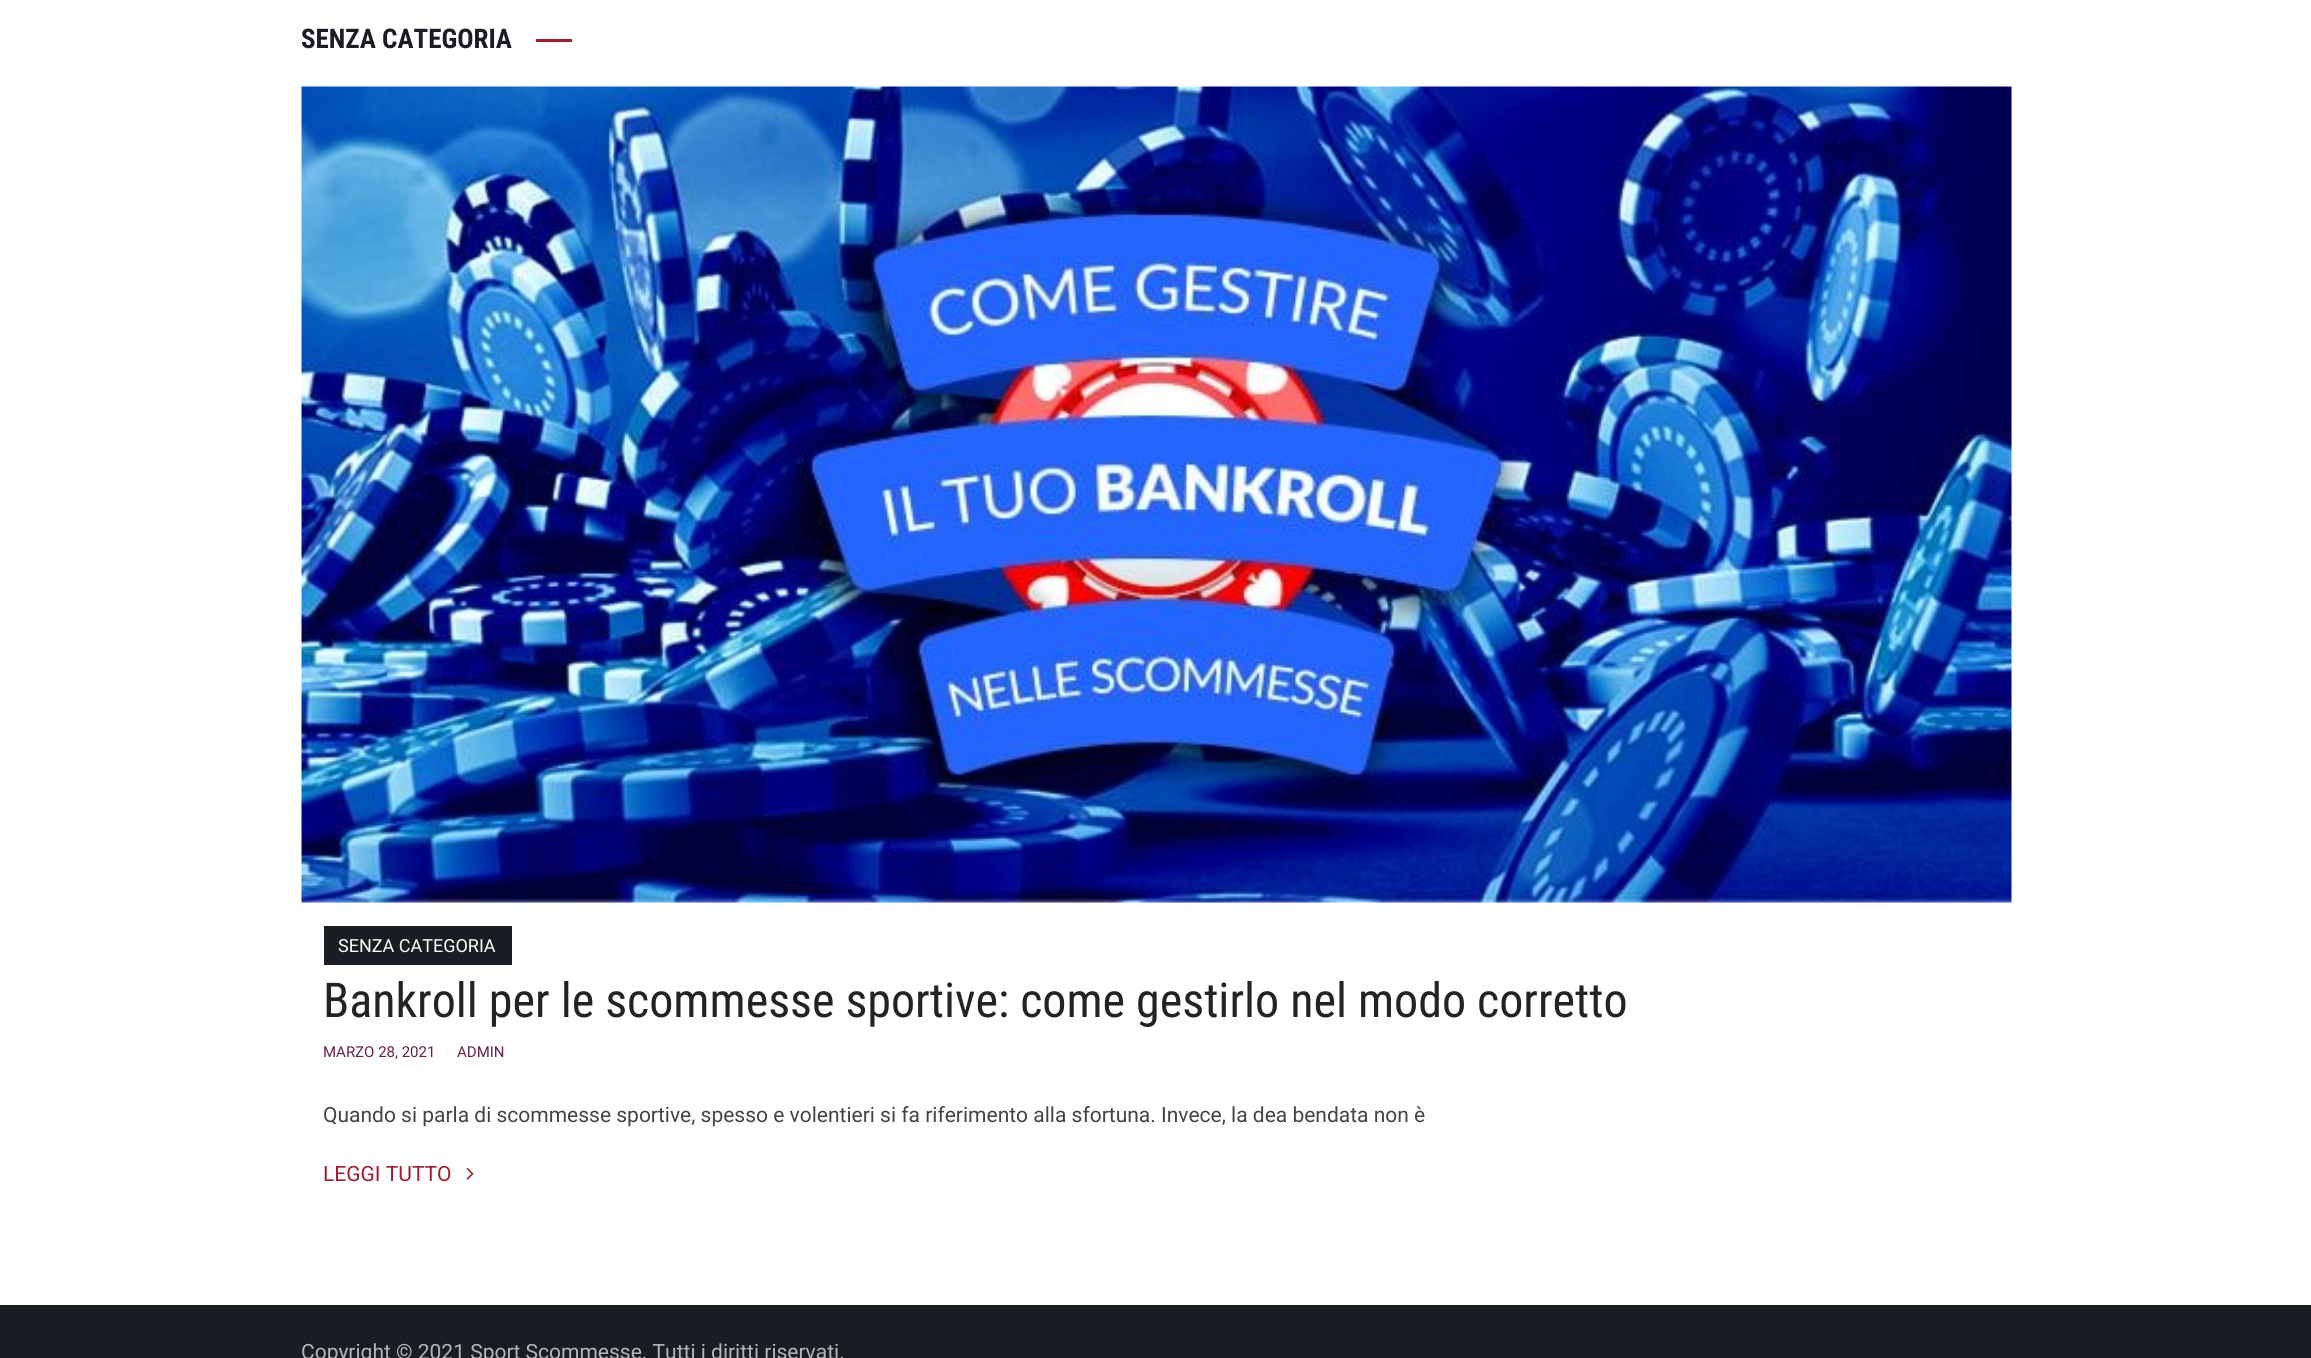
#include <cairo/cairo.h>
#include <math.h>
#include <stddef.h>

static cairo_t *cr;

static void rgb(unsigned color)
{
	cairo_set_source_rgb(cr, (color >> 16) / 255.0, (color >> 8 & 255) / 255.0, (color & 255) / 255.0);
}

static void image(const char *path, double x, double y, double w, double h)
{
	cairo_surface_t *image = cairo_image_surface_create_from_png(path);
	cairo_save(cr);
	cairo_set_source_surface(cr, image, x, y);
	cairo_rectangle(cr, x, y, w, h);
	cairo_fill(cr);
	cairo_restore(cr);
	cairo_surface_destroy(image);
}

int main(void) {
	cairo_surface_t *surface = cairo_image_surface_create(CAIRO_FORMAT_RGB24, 2311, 1358);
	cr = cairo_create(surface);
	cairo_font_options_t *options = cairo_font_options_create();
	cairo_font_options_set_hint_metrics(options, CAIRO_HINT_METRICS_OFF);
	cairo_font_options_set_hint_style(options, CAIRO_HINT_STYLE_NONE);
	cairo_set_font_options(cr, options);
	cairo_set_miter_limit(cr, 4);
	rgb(0xffffff);
	cairo_paint(cr);
	rgb(0xa01c2c);
	cairo_rectangle(cr, 536, 39, 36, 3);
	cairo_fill(cr);
	image("img/1.png", 301, 86, 1711, 817);
	rgb(0x1a1d24);
	cairo_rectangle(cr, 324, 926, 188, 39);
	cairo_fill(cr);
	image("img/2.png", 466, 1168, 8, 12);
	cairo_rectangle(cr, 0, 1305, 2311, 53);
	cairo_fill(cr);
	cairo_select_font_face(cr, "Roboto Condensed", CAIRO_FONT_SLANT_NORMAL, CAIRO_FONT_WEIGHT_BOLD);
	cairo_set_font_size(cr, 27);
	cairo_move_to(cr, 301, 48);
	cairo_show_text(cr, "SENZA CATEGORIA");
	cairo_select_font_face(cr, "Roboto", CAIRO_FONT_SLANT_NORMAL, CAIRO_FONT_WEIGHT_NORMAL);
	cairo_set_font_size(cr, 18);
	rgb(0xffffff);
	cairo_move_to(cr, 338, 952);
	cairo_show_text(cr, "SENZA CATEGORIA");
	cairo_select_font_face(cr, "Roboto Condensed", CAIRO_FONT_SLANT_NORMAL, CAIRO_FONT_WEIGHT_NORMAL);
	cairo_set_font_size(cr, 48);
	rgb(0x232323);
	cairo_move_to(cr, 323, 1017);
	cairo_show_text(cr, "Bankroll per le scommesse sportive: come gestirlo nel modo corretto");
	cairo_select_font_face(cr, "Roboto", CAIRO_FONT_SLANT_NORMAL, CAIRO_FONT_WEIGHT_NORMAL);
	cairo_set_font_size(cr, 15);
	rgb(0x672247);
	cairo_move_to(cr, 323, 1057);
	cairo_show_text(cr, "MARZO 28, 2021");
	cairo_move_to(cr, 457, 1057);
	cairo_show_text(cr, "ADMIN");
	cairo_set_font_size(cr, 21);
	rgb(0x444444);
	cairo_move_to(cr, 323, 1122);
	cairo_show_text(cr, "Quando si parla di scommesse sportive, spesso e volentieri si fa riferimento alla sfortuna. Invece, la dea bendata non è");
	rgb(0xa01c2c);
	cairo_move_to(cr, 323, 1181);
	cairo_show_text(cr, "LEGGI TUTTO");
	rgb(0xb1b6b6);
	cairo_move_to(cr, 301, 1359);
	cairo_show_text(cr, "Copyright © 2021 Sport Scommesse. Tutti i diritti riservati.");
	cairo_surface_write_to_png(surface, "page.png");
	cairo_font_options_destroy(options);
	cairo_destroy(cr);
	cairo_surface_destroy(surface);
	return 0;
}
